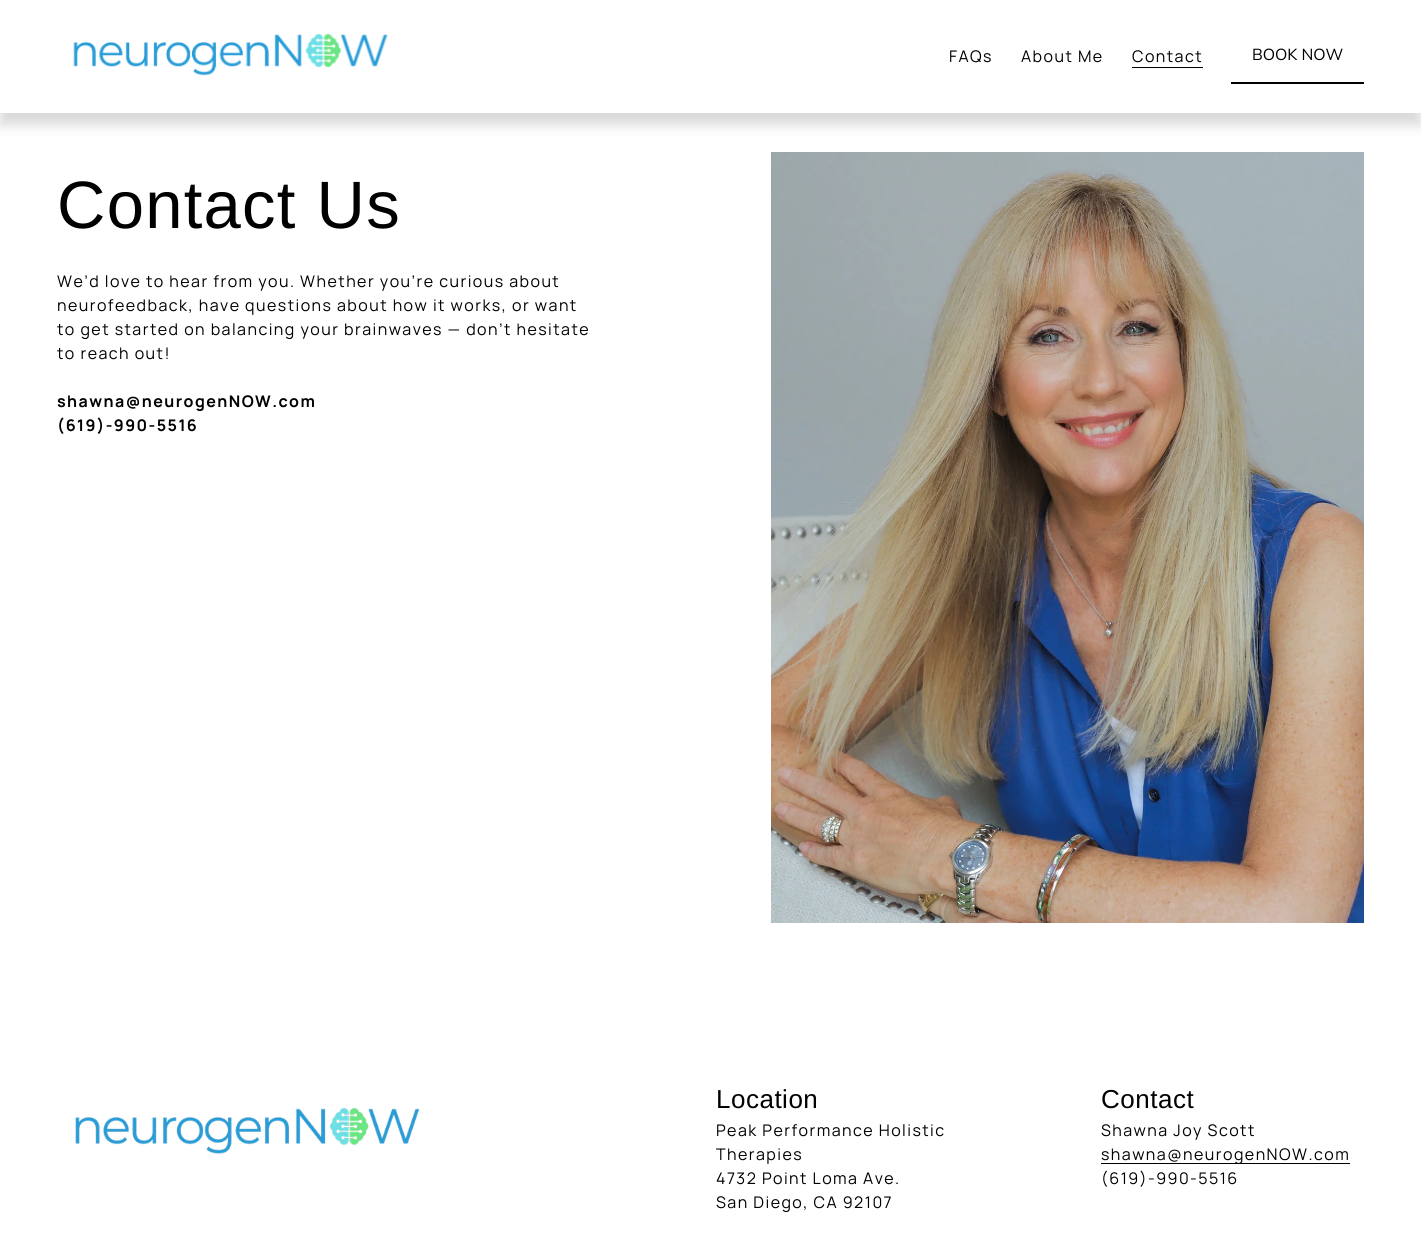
#include <cairo/cairo.h>
#include <math.h>
#include <stddef.h>

typedef struct { double x, y; const char *s; } line_t;
static cairo_t *cr;

static void rgb(unsigned color)
{
	cairo_set_source_rgb(cr, (color >> 16) / 255.0, (color >> 8 & 255) / 255.0, (color & 255) / 255.0);
}

static void tracked(double x, double y, const char *s, double letter, double word)
{
	cairo_move_to(cr, x, y);
	while (*s) {
		char ch[5] = {0};
		int n = 0;
		do ch[n++] = *s++; while ((*s & 0xC0) == 0x80);
		cairo_show_text(cr, ch);
		cairo_rel_move_to(cr, letter + word * (*ch == ' '), 0);
	}
}

static void rrect(double x, double y, double w, double h, double r)
{
	cairo_new_sub_path(cr);
	cairo_arc(cr, x + w - r, y + h - r, r, 0, M_PI / 2);
	cairo_arc(cr, x + r, y + h - r, r, M_PI / 2, M_PI);
	cairo_arc(cr, x + r, y + r, r, M_PI, 1.5 * M_PI);
	cairo_arc(cr, x + w - r, y + r, r, 1.5 * M_PI, 2 * M_PI);
	cairo_close_path(cr);
}

static void soft_shadow(double x, double y, double w, double h, double r, double blur, double alpha)
{
	cairo_push_group_with_content(cr, CAIRO_CONTENT_ALPHA);
	cairo_set_operator(cr, CAIRO_OPERATOR_SOURCE);
	for (int i = 15; i >= -15 && fmin(w, h) + blur * i / 3 > 0; i -= 2) {
		double e = blur * i / 6;
		cairo_set_source_rgba(cr, 0, 0, 0, alpha * erfc((i - 1) / 8.5) / 2);
		rrect(x - e, y - e, w + 2 * e, h + 2 * e, fmax(0, fmin(r + e + blur * .6, fmin(w, h) / 2 + e)));
		cairo_fill(cr);
	}
	cairo_pattern_t *soft = cairo_pop_group(cr);
	cairo_mask(cr, soft);
	cairo_pattern_destroy(soft);
}

static void image(const char *path, double x, double y, double w, double h)
{
	cairo_surface_t *image = cairo_image_surface_create_from_png(path);
	cairo_save(cr);
	cairo_set_source_surface(cr, image, x, y);
	cairo_rectangle(cr, x, y, w, h);
	cairo_fill(cr);
	cairo_restore(cr);
	cairo_surface_destroy(image);
}

int main(void) {
	cairo_surface_t *surface = cairo_image_surface_create(CAIRO_FORMAT_RGB24, 1421, 1243);
	cr = cairo_create(surface);
	cairo_font_options_t *options = cairo_font_options_create();
	cairo_font_options_set_hint_metrics(options, CAIRO_HINT_METRICS_OFF);
	cairo_font_options_set_hint_style(options, CAIRO_HINT_STYLE_NONE);
	cairo_set_font_options(cr, options);
	cairo_set_miter_limit(cr, 4);
	rgb(0xffffff);
	cairo_paint(cr);
	cairo_save(cr);
	cairo_rectangle(cr, 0, 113, 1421, 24);
	cairo_clip(cr);
	rgb(0xd9d9d9);
	soft_shadow(0, 12, 1421, 113, 0, 6, 1);
	cairo_restore(cr);
	image("img/1.png", 73, 33, 315, 43);
	rgb(0x000000);
	cairo_rectangle(cr, 1132, 67, 71, 1);
	cairo_fill(cr);
	cairo_rectangle(cr, 1231, 82, 133, 2);
	cairo_fill(cr);
	image("img/2.png", 771, 152, 593, 771);
	image("img/3.png", 75, 1108, 345, 46);
	cairo_rectangle(cr, 1101, 1163, 249, 1);
	cairo_fill(cr);
	cairo_select_font_face(cr, "Manrope", CAIRO_FONT_SLANT_NORMAL, CAIRO_FONT_WEIGHT_NORMAL);
	cairo_set_font_size(cr, 16);
	{
		static const line_t items[] = {
			{949, 62, "FAQs"},
			{1021, 62, "About Me"},
			{1132, 62, "Contact"},
		};
		for (size_t i = 0; i < sizeof items / sizeof *items; i++) {
			tracked(items[i].x, items[i].y, items[i].s, 1.45, 0);
		}
	}
	cairo_select_font_face(cr, "Nunito Sans", CAIRO_FONT_SLANT_NORMAL, CAIRO_FONT_WEIGHT_NORMAL);
	cairo_move_to(cr, 1252, 60);
	cairo_show_text(cr, "BOOK NOW");
	cairo_select_font_face(cr, "Liberation Sans", CAIRO_FONT_SLANT_NORMAL, CAIRO_FONT_WEIGHT_NORMAL);
	cairo_set_font_size(cr, 67);
	tracked(57, 228, "Contact Us", 1.25, 0);
	cairo_select_font_face(cr, "Manrope", CAIRO_FONT_SLANT_NORMAL, CAIRO_FONT_WEIGHT_NORMAL);
	cairo_set_font_size(cr, 16);
	{
		static const line_t items[] = {
			{57, 287, "We’d love to hear from you. Whether you’re curious about"},
			{57, 311, "neurofeedback, have questions about how it works, or want"},
			{57, 335, "to get started on balancing your brainwaves — don’t hesitate"},
			{57, 359, "to reach out!"},
		};
		for (size_t i = 0; i < sizeof items / sizeof *items; i++) {
			tracked(items[i].x, items[i].y, items[i].s, 1.45, 0);
		}
	}
	cairo_select_font_face(cr, "Manrope", CAIRO_FONT_SLANT_NORMAL, CAIRO_FONT_WEIGHT_BOLD);
	tracked(57, 407, "shawna@neurogenNOW.com", 1.45, 0);
	tracked(57, 431, "(619)-990-5516", 1.45, 0);
	cairo_select_font_face(cr, "Liberation Sans", CAIRO_FONT_SLANT_NORMAL, CAIRO_FONT_WEIGHT_NORMAL);
	cairo_set_font_size(cr, 26);
	tracked(716, 1108, "Location", 0.5, 0);
	tracked(1101, 1108, "Contact", 0.5, 0);
	cairo_select_font_face(cr, "Manrope", CAIRO_FONT_SLANT_NORMAL, CAIRO_FONT_WEIGHT_NORMAL);
	cairo_set_font_size(cr, 16);
	{
		static const line_t items[] = {
			{716, 1136, "Peak Performance Holistic"},
			{716, 1160, "Therapies"},
			{716, 1184, "4732 Point Loma Ave."},
			{716, 1208, "San Diego, CA 92107"},
			{1101, 1136, "Shawna Joy Scott"},
			{1101, 1160, "shawna@neurogenNOW.com"},
			{1101, 1184, "(619)-990-5516"},
		};
		for (size_t i = 0; i < sizeof items / sizeof *items; i++) {
			tracked(items[i].x, items[i].y, items[i].s, 1.45, 0);
		}
	}
	cairo_surface_write_to_png(surface, "page.png");
	cairo_font_options_destroy(options);
	cairo_destroy(cr);
	cairo_surface_destroy(surface);
	return 0;
}
